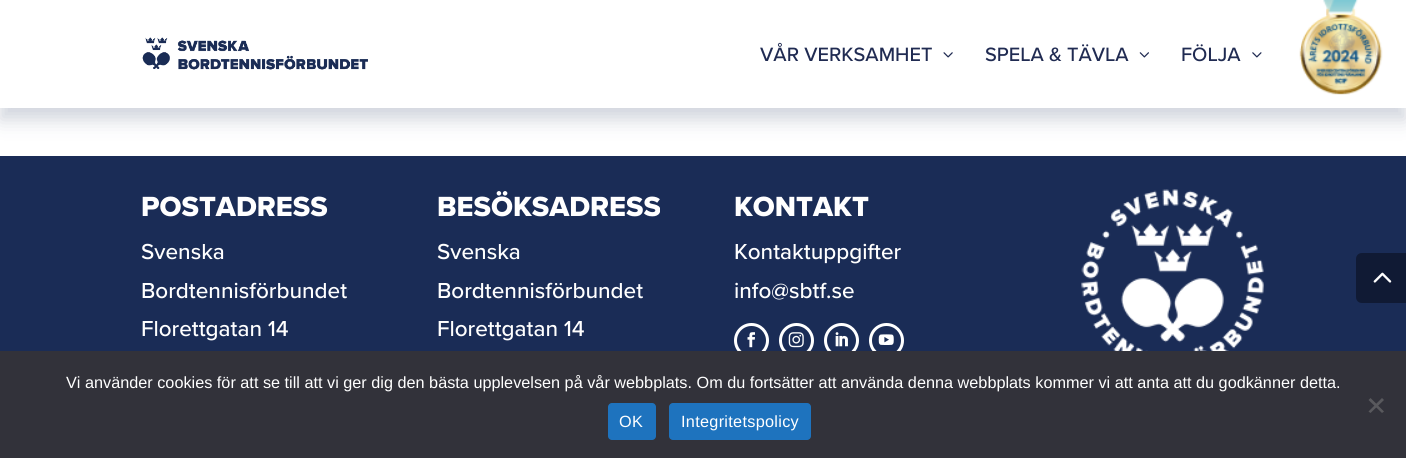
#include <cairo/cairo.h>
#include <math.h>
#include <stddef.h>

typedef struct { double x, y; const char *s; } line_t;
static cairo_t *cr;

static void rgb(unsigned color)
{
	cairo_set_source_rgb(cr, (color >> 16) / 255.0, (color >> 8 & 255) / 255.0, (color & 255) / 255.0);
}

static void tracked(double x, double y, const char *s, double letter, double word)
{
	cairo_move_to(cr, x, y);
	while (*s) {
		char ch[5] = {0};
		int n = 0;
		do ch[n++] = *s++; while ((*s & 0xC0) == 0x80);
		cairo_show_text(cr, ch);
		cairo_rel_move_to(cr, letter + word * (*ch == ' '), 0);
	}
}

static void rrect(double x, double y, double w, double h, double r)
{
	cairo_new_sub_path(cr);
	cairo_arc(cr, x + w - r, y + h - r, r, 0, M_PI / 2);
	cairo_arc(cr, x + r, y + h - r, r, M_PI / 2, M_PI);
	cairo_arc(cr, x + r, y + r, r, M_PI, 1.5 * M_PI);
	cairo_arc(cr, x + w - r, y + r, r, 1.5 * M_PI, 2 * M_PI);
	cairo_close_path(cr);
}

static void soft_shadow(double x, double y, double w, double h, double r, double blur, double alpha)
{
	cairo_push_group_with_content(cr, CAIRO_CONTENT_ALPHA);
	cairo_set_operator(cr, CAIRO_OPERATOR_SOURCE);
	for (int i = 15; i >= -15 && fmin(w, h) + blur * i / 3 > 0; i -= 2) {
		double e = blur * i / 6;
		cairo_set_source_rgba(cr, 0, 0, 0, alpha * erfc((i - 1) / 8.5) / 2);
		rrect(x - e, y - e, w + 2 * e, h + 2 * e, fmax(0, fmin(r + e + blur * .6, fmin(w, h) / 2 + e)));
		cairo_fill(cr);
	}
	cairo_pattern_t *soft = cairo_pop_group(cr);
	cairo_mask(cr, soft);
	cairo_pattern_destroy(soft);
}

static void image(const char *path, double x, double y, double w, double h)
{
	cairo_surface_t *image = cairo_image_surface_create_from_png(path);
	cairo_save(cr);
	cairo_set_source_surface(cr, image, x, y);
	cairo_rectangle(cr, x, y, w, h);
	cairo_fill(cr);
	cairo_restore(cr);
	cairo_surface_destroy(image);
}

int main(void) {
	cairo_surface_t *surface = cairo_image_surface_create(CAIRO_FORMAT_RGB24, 1406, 458);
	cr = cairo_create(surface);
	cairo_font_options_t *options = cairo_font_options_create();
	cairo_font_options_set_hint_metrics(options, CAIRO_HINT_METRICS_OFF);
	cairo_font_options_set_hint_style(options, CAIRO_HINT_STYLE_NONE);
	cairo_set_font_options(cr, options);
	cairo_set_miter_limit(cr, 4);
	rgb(0xffffff);
	cairo_paint(cr);
	cairo_save(cr);
	cairo_set_fill_rule(cr, CAIRO_FILL_RULE_EVEN_ODD);
	cairo_new_path(cr);
	cairo_move_to(cr, 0, 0);
	cairo_line_to(cr, 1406, 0);
	cairo_line_to(cr, 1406, 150);
	cairo_line_to(cr, 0, 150);
	cairo_close_path(cr);
	cairo_move_to(cr, 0, 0);
	cairo_line_to(cr, 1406, 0);
	cairo_line_to(cr, 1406, 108);
	cairo_line_to(cr, 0, 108);
	cairo_close_path(cr);
	cairo_clip(cr);
	rgb(0x1a2c56);
	soft_shadow(0, 13, 1406, 107, 0, 9.5, 0.2);
	cairo_restore(cr);
	cairo_set_source_rgba(cr, 1, 1, 1, 0.97);
	cairo_rectangle(cr, 0, 107, 1406, 1);
	cairo_fill(cr);
	image("img/1.png", 1299, 0, 84, 95);
	image("img/2.png", 142, 37, 226, 33);
	image("img/3.png", 943, 52, 10, 6);
	image("img/4.png", 1139, 52, 10, 6);
	image("img/5.png", 1252, 52, 10, 6);
	rgb(0x1a2c56);
	cairo_rectangle(cr, 0, 156, 1406, 195);
	cairo_fill(cr);
	cairo_arc(cr, 751.5, 340.5, 16, 0, 2 * M_PI);
	rgb(0xffffff);
	cairo_set_line_width(cr, 3);
	cairo_stroke(cr);
	image("img/6.png", 747, 332, 8, 16);
	cairo_arc(cr, 796.5, 340.5, 16, 0, 2 * M_PI);
	cairo_stroke(cr);
	image("img/7.png", 788, 332, 16, 16);
	cairo_arc(cr, 841.5, 340.5, 16, 0, 2 * M_PI);
	cairo_stroke(cr);
	image("img/8.png", 835, 332, 13, 15);
	cairo_arc(cr, 886.5, 340.5, 16, 0, 2 * M_PI);
	cairo_stroke(cr);
	image("img/9.png", 878, 334, 16, 11);
	image("img/10.png", 1081, 189, 183, 162);
	rgb(0x101a34);
	cairo_new_path(cr);
	cairo_move_to(cr, 1362, 253);
	cairo_line_to(cr, 1406, 253);
	cairo_line_to(cr, 1406, 303);
	cairo_line_to(cr, 1362, 303);
	cairo_curve_to(cr, 1358.5, 303, 1356, 300.5, 1356, 297);
	cairo_line_to(cr, 1356, 259);
	cairo_curve_to(cr, 1356, 255.5, 1358.5, 253, 1362, 253);
	cairo_close_path(cr);
	cairo_fill(cr);
	image("img/11.png", 1373, 272, 19, 11);
	rgb(0x32323a);
	cairo_rectangle(cr, 0, 351, 1406, 107);
	cairo_fill(cr);
	rgb(0x59595d);
	cairo_new_path(cr);
	cairo_move_to(cr, 1382, 398);
	cairo_line_to(cr, 1384, 400);
	cairo_line_to(cr, 1370.5, 413);
	cairo_line_to(cr, 1368.5, 411.5);
	cairo_close_path(cr);
	cairo_fill(cr);
	cairo_new_path(cr);
	cairo_move_to(cr, 1368.5, 400);
	cairo_line_to(cr, 1370.5, 398);
	cairo_line_to(cr, 1384, 411.5);
	cairo_line_to(cr, 1382, 413);
	cairo_close_path(cr);
	cairo_fill(cr);
	rgb(0x1e73be);
	rrect(608, 403, 48, 37, 4);
	cairo_fill(cr);
	rrect(669, 403, 142, 37, 4);
	cairo_fill(cr);
	cairo_select_font_face(cr, "Proxima Nova Medium", CAIRO_FONT_SLANT_NORMAL, CAIRO_FONT_WEIGHT_NORMAL);
	cairo_set_font_size(cr, 20);
	rgb(0x202b52);
	{
		static const line_t items[] = {
			{760, 61, "VÅR VERKSAMHET"},
			{985, 61, "SPELA & TÄVLA"},
			{1181, 61, "FÖLJA"},
		};
		for (size_t i = 0; i < sizeof items / sizeof *items; i++) {
			cairo_move_to(cr, items[i].x, items[i].y);
			cairo_show_text(cr, items[i].s);
		}
	}
	cairo_select_font_face(cr, "Proxima Nova ExtraBold", CAIRO_FONT_SLANT_NORMAL, CAIRO_FONT_WEIGHT_NORMAL);
	cairo_set_font_size(cr, 28.75);
	rgb(0xffffff);
	cairo_move_to(cr, 141, 216);
	cairo_show_text(cr, "POSTADRESS");
	cairo_select_font_face(cr, "Proxima Nova Medium", CAIRO_FONT_SLANT_NORMAL, CAIRO_FONT_WEIGHT_NORMAL);
	cairo_set_font_size(cr, 22.5);
	{
		static const line_t items[] = {
			{141, 259, "Svenska"},
			{141, 298, "Bordtennisförbundet"},
			{141, 336, "Florettgatan 14"},
		};
		for (size_t i = 0; i < sizeof items / sizeof *items; i++) {
			cairo_move_to(cr, items[i].x, items[i].y);
			cairo_show_text(cr, items[i].s);
		}
	}
	cairo_select_font_face(cr, "Proxima Nova ExtraBold", CAIRO_FONT_SLANT_NORMAL, CAIRO_FONT_WEIGHT_NORMAL);
	cairo_set_font_size(cr, 28.75);
	cairo_move_to(cr, 437, 216);
	cairo_show_text(cr, "BESÖKSADRESS");
	cairo_select_font_face(cr, "Proxima Nova Medium", CAIRO_FONT_SLANT_NORMAL, CAIRO_FONT_WEIGHT_NORMAL);
	cairo_set_font_size(cr, 22.5);
	{
		static const line_t items[] = {
			{437, 259, "Svenska"},
			{437, 298, "Bordtennisförbundet"},
			{437, 336, "Florettgatan 14"},
		};
		for (size_t i = 0; i < sizeof items / sizeof *items; i++) {
			cairo_move_to(cr, items[i].x, items[i].y);
			cairo_show_text(cr, items[i].s);
		}
	}
	cairo_select_font_face(cr, "Proxima Nova ExtraBold", CAIRO_FONT_SLANT_NORMAL, CAIRO_FONT_WEIGHT_NORMAL);
	cairo_set_font_size(cr, 28.75);
	cairo_move_to(cr, 734, 216);
	cairo_show_text(cr, "KONTAKT");
	cairo_select_font_face(cr, "Proxima Nova Medium", CAIRO_FONT_SLANT_NORMAL, CAIRO_FONT_WEIGHT_NORMAL);
	cairo_set_font_size(cr, 22.5);
	cairo_move_to(cr, 734, 259);
	cairo_show_text(cr, "Kontaktuppgifter");
	cairo_move_to(cr, 734, 298);
	cairo_show_text(cr, "info@sbtf.se");
	cairo_select_font_face(cr, "Liberation Sans", CAIRO_FONT_SLANT_NORMAL, CAIRO_FONT_WEIGHT_NORMAL);
	cairo_set_font_size(cr, 16.25);
	cairo_move_to(cr, 66, 388);
	cairo_show_text(cr, "Vi använder cookies för att se till att vi ger dig den bästa upplevelsen på vår webbplats. Om du fortsätter att använda denna webbplats kommer vi att anta att du godkänner detta.");
	tracked(619, 427, "OK", 0.3, 0);
	tracked(681, 427, "Integritetspolicy", 0.3, 0);
	cairo_surface_write_to_png(surface, "page.png");
	cairo_font_options_destroy(options);
	cairo_destroy(cr);
	cairo_surface_destroy(surface);
	return 0;
}
